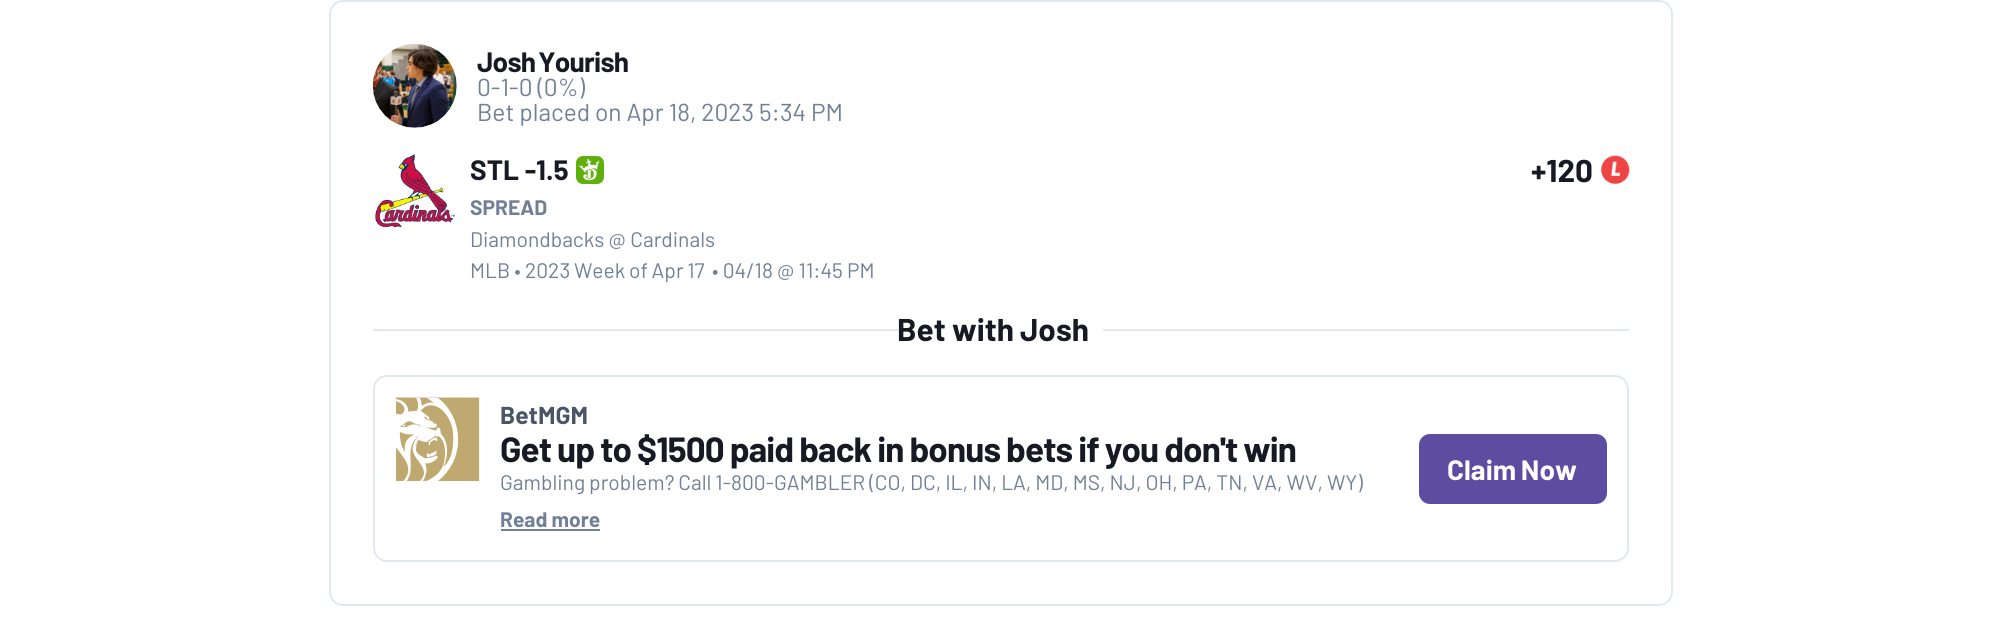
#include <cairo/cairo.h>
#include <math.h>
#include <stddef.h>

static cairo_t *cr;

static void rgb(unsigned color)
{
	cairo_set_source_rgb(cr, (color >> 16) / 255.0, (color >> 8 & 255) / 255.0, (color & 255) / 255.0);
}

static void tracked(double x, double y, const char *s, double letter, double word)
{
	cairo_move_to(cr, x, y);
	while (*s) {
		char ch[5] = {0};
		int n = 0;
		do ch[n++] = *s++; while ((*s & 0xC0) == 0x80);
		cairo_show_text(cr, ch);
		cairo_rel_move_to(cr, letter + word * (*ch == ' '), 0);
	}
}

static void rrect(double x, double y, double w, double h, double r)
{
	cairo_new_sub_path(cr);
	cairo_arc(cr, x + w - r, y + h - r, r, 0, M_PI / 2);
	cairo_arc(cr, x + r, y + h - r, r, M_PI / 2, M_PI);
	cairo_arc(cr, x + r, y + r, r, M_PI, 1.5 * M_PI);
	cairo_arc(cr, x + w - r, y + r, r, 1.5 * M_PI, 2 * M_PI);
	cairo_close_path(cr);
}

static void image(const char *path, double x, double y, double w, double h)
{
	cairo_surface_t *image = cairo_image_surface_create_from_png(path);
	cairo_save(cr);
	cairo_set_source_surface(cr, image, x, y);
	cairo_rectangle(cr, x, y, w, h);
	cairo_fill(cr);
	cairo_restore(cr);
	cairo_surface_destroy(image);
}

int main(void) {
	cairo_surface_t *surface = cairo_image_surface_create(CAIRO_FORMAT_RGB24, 1999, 623);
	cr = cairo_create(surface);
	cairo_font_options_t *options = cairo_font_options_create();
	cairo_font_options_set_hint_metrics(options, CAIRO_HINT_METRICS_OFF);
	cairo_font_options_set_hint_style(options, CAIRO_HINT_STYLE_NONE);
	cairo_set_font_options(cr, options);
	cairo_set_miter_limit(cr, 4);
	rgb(0xffffff);
	cairo_paint(cr);
	rrect(330, 1, 1342, 604, 13);
	rgb(0xe2e8f0);
	cairo_stroke(cr);
	image("img/1.png", 372, 44, 85, 84);
	image("img/2.png", 375, 154, 80, 74);
	image("img/3.png", 576, 156, 28, 28);
	image("img/4.png", 1601, 155, 29, 29);
	cairo_rectangle(cr, 373, 329, 525, 2);
	cairo_fill(cr);
	cairo_rectangle(cr, 1103, 329, 526, 2);
	cairo_fill(cr);
	rrect(374, 376, 1254, 185, 13);
	cairo_stroke(cr);
	image("img/5.png", 396, 397, 84, 84);
	rgb(0x718096);
	cairo_rectangle(cr, 501, 529, 99, 2);
	cairo_fill(cr);
	rgb(0x5c4da0);
	rrect(1419, 434, 188, 70, 11);
	cairo_fill(cr);
	cairo_select_font_face(cr, "Barlow", CAIRO_FONT_SLANT_NORMAL, CAIRO_FONT_WEIGHT_BOLD);
	cairo_set_font_size(cr, 28);
	rgb(0x171923);
	tracked(477, 72, "Josh Yourish", -0.75, -2);
	cairo_select_font_face(cr, "Barlow", CAIRO_FONT_SLANT_NORMAL, CAIRO_FONT_WEIGHT_NORMAL);
	cairo_set_font_size(cr, 24.5);
	rgb(0x718096);
	cairo_move_to(cr, 477, 96);
	cairo_show_text(cr, "0-1-0 (0%)");
	cairo_move_to(cr, 477, 121);
	cairo_show_text(cr, "Bet placed on Apr 18, 2023 5:34 PM");
	cairo_select_font_face(cr, "Barlow", CAIRO_FONT_SLANT_NORMAL, CAIRO_FONT_WEIGHT_BOLD);
	cairo_set_font_size(cr, 28);
	rgb(0x171923);
	cairo_move_to(cr, 470, 180);
	cairo_show_text(cr, "STL -1.5");
	cairo_set_font_size(cr, 31.5);
	cairo_move_to(cr, 1531, 182);
	cairo_show_text(cr, "+120");
	cairo_set_font_size(cr, 21);
	rgb(0x718096);
	cairo_move_to(cr, 470, 215);
	cairo_show_text(cr, "SPREAD");
	cairo_select_font_face(cr, "Barlow", CAIRO_FONT_SLANT_NORMAL, CAIRO_FONT_WEIGHT_NORMAL);
	cairo_move_to(cr, 470, 247);
	cairo_show_text(cr, "Diamondbacks @ Cardinals");
	cairo_move_to(cr, 470, 278);
	cairo_show_text(cr, "MLB •");
	tracked(525, 278, "2023 Week of Apr 17", 0, -0.5);
	cairo_move_to(cr, 712, 278);
	cairo_show_text(cr, "• 04/18 @ 11:45 PM");
	cairo_select_font_face(cr, "Barlow", CAIRO_FONT_SLANT_NORMAL, CAIRO_FONT_WEIGHT_BOLD);
	cairo_set_font_size(cr, 31.5);
	rgb(0x171923);
	cairo_move_to(cr, 897, 341);
	cairo_show_text(cr, "Bet with");
	cairo_move_to(cr, 1020, 341);
	cairo_show_text(cr, "Josh");
	cairo_set_font_size(cr, 24.5);
	rgb(0x4a5568);
	cairo_move_to(cr, 500, 424);
	cairo_show_text(cr, "BetMGM");
	cairo_set_font_size(cr, 35);
	rgb(0x171923);
	tracked(500, 462, "Get up to $1500 paid back in bonus bets if you don't win", -0.88, -0.25);
	cairo_select_font_face(cr, "Barlow", CAIRO_FONT_SLANT_NORMAL, CAIRO_FONT_WEIGHT_NORMAL);
	cairo_set_font_size(cr, 21);
	rgb(0x718096);
	tracked(500, 490, "Gambling problem? Call 1-800-GAMBLER (CO, DC, IL, IN, LA, MD, MS, NJ, OH, PA, TN, VA, WV, WY)", 0, -0.25);
	cairo_select_font_face(cr, "Barlow", CAIRO_FONT_SLANT_NORMAL, CAIRO_FONT_WEIGHT_BOLD);
	cairo_move_to(cr, 500, 527);
	cairo_show_text(cr, "Read more");
	cairo_set_font_size(cr, 28);
	rgb(0xffffff);
	tracked(1447, 480, "Claim Now", 0, -1);
	cairo_surface_write_to_png(surface, "page.png");
	cairo_font_options_destroy(options);
	cairo_destroy(cr);
	cairo_surface_destroy(surface);
	return 0;
}
